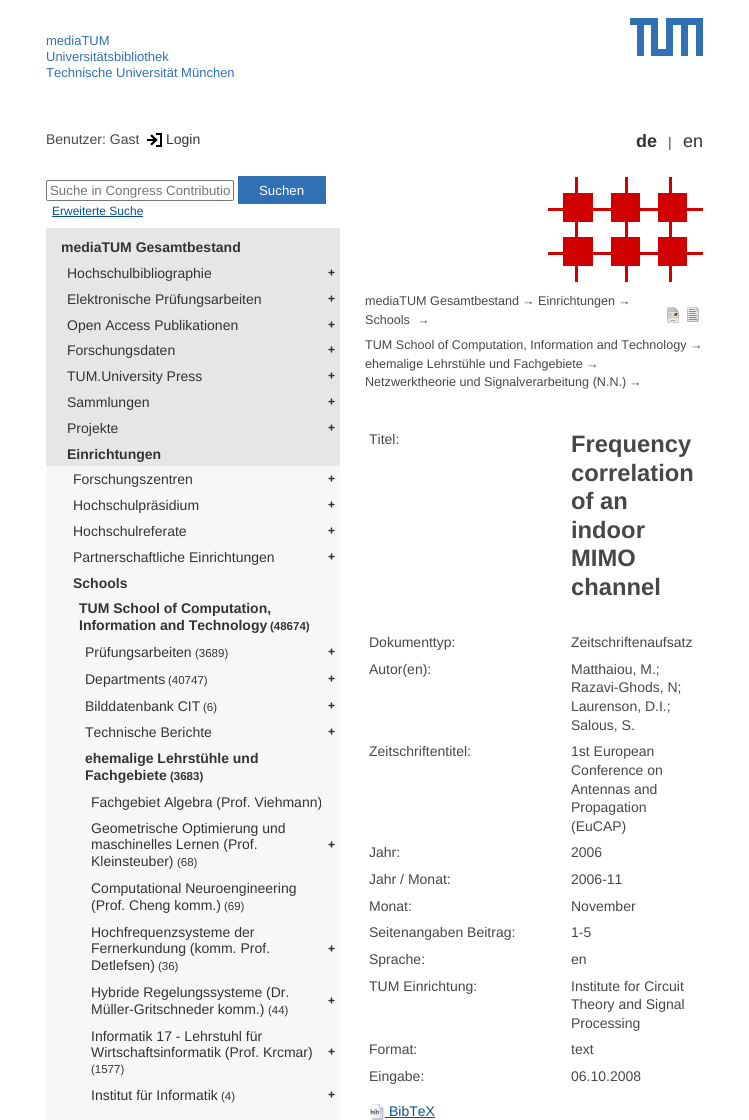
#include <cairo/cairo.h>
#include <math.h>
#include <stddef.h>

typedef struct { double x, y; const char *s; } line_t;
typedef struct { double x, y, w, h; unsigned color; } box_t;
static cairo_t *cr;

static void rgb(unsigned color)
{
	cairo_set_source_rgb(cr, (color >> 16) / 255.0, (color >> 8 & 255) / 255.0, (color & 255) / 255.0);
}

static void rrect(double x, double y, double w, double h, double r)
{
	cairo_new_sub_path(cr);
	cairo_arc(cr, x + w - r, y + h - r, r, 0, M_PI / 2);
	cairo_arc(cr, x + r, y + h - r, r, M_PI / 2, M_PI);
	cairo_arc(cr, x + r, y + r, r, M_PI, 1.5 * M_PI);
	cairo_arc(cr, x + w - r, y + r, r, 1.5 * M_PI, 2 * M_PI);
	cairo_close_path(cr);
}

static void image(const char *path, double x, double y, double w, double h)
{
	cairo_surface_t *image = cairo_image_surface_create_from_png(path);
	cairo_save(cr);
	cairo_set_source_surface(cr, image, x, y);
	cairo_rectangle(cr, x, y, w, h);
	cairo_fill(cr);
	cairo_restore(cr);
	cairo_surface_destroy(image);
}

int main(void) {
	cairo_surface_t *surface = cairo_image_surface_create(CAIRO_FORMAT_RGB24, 749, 1120);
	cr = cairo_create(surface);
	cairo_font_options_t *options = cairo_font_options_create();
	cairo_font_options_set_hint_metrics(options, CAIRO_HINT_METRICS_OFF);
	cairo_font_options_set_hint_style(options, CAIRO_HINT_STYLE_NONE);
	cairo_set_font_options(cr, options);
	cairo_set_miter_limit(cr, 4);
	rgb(0xffffff);
	cairo_paint(cr);
	image("img/1.png", 630, 18, 73, 38);
	image("img/2.png", 147, 133, 15, 14);
	rrect(46.5, 180.5, 187, 20, 1.5);
	rgb(0x767676);
	cairo_set_line_width(cr, 1);
	cairo_stroke(cr);
	{
		static const box_t items[] = {
			{238, 176, 88, 28, 0x3070b3},
			{52, 216, 91, 1, 0x0a5096},
			{46, 228, 294, 238, 0xe6e6e6},
		};
		for (size_t i = 0; i < sizeof items / sizeof *items; i++) {
			rgb(items[i].color);
			cairo_rectangle(cr, items[i].x, items[i].y, items[i].w, items[i].h);
			cairo_fill(cr);
		}
	}
	image("img/3.png", 328, 269, 7, 7);
	image("img/3.png", 328, 295, 7, 7);
	image("img/3.png", 328, 321, 7, 7);
	image("img/3.png", 328, 346, 7, 7);
	image("img/3.png", 328, 372, 7, 7);
	image("img/3.png", 328, 398, 7, 7);
	image("img/3.png", 328, 424, 7, 7);
	rgb(0xf7f7f7);
	cairo_rectangle(cr, 46, 466, 294, 654);
	cairo_fill(cr);
	image("img/4.png", 328, 475, 7, 7);
	image("img/4.png", 328, 501, 7, 7);
	image("img/4.png", 328, 527, 7, 7);
	image("img/4.png", 328, 553, 7, 7);
	image("img/4.png", 328, 648, 7, 7);
	image("img/4.png", 328, 675, 7, 7);
	image("img/4.png", 328, 702, 7, 7);
	image("img/4.png", 328, 728, 7, 7);
	image("img/4.png", 328, 841, 7, 7);
	image("img/4.png", 328, 945, 7, 7);
	image("img/4.png", 328, 997, 7, 7);
	image("img/4.png", 328, 1048, 7, 7);
	image("img/4.png", 328, 1091, 7, 7);
	image("img/5.png", 548, 177, 155, 105);
	image("img/6.png", 667, 307, 12, 16);
	image("img/7.png", 687, 307, 12, 15);
	image("img/8.png", 370, 1104, 14, 16);
	rgb(0x0a5096);
	cairo_rectangle(cr, 385, 1117, 50, 1);
	cairo_fill(cr);
	cairo_select_font_face(cr, "Liberation Sans", CAIRO_FONT_SLANT_NORMAL, CAIRO_FONT_WEIGHT_NORMAL);
	cairo_set_font_size(cr, 13);
	rgb(0x3070b3);
	{
		static const line_t items[] = {
			{46, 45, "mediaTUM"},
			{46, 61, "Universitätsbibliothek"},
			{46, 77, "Technische Universität München"},
		};
		for (size_t i = 0; i < sizeof items / sizeof *items; i++) {
			cairo_move_to(cr, items[i].x, items[i].y);
			cairo_show_text(cr, items[i].s);
		}
	}
	cairo_set_font_size(cr, 14);
	rgb(0x474747);
	cairo_move_to(cr, 46, 144);
	cairo_show_text(cr, "Benutzer: Gast");
	rgb(0x333333);
	cairo_move_to(cr, 166, 144);
	cairo_show_text(cr, "Login");
	cairo_select_font_face(cr, "Liberation Sans", CAIRO_FONT_SLANT_NORMAL, CAIRO_FONT_WEIGHT_BOLD);
	cairo_set_font_size(cr, 18);
	cairo_move_to(cr, 636, 147);
	cairo_show_text(cr, "de");
	cairo_select_font_face(cr, "Liberation Sans", CAIRO_FONT_SLANT_NORMAL, CAIRO_FONT_WEIGHT_NORMAL);
	cairo_set_font_size(cr, 14);
	rgb(0x474747);
	cairo_move_to(cr, 668, 147);
	cairo_show_text(cr, "|");
	cairo_set_font_size(cr, 18);
	rgb(0x333333);
	cairo_move_to(cr, 683, 147);
	cairo_show_text(cr, "en");
	cairo_save(cr);
	cairo_rectangle(cr, 50, 183, 180, 15);
	cairo_clip(cr);
	cairo_set_font_size(cr, 13.3);
	rgb(0x757575);
	cairo_move_to(cr, 50, 195);
	cairo_show_text(cr, "Suche in Congress Contributio");
	cairo_restore(cr);
	cairo_set_font_size(cr, 13.3);
	rgb(0xffffff);
	cairo_move_to(cr, 259, 195);
	cairo_show_text(cr, "Suchen");
	cairo_set_font_size(cr, 12);
	rgb(0x0a5096);
	cairo_move_to(cr, 52, 215);
	cairo_show_text(cr, "Erweiterte Suche");
	cairo_select_font_face(cr, "Liberation Sans", CAIRO_FONT_SLANT_NORMAL, CAIRO_FONT_WEIGHT_BOLD);
	cairo_set_font_size(cr, 14);
	rgb(0x333333);
	cairo_move_to(cr, 61, 252);
	cairo_show_text(cr, "mediaTUM Gesamtbestand");
	cairo_select_font_face(cr, "Liberation Sans", CAIRO_FONT_SLANT_NORMAL, CAIRO_FONT_WEIGHT_NORMAL);
	{
		static const line_t items[] = {
			{67, 278, "Hochschulbibliographie"},
			{67, 304, "Elektronische Prüfungsarbeiten"},
			{67, 330, "Open Access Publikationen"},
			{67, 355, "Forschungsdaten"},
			{67, 381, "TUM.University Press"},
			{67, 407, "Sammlungen"},
			{67, 433, "Projekte"},
		};
		for (size_t i = 0; i < sizeof items / sizeof *items; i++) {
			cairo_move_to(cr, items[i].x, items[i].y);
			cairo_show_text(cr, items[i].s);
		}
	}
	cairo_select_font_face(cr, "Liberation Sans", CAIRO_FONT_SLANT_NORMAL, CAIRO_FONT_WEIGHT_BOLD);
	cairo_move_to(cr, 67, 459);
	cairo_show_text(cr, "Einrichtungen");
	cairo_select_font_face(cr, "Liberation Sans", CAIRO_FONT_SLANT_NORMAL, CAIRO_FONT_WEIGHT_NORMAL);
	{
		static const line_t items[] = {
			{73, 484, "Forschungszentren"},
			{73, 510, "Hochschulpräsidium"},
			{73, 536, "Hochschulreferate"},
			{73, 562, "Partnerschaftliche Einrichtungen"},
		};
		for (size_t i = 0; i < sizeof items / sizeof *items; i++) {
			cairo_move_to(cr, items[i].x, items[i].y);
			cairo_show_text(cr, items[i].s);
		}
	}
	cairo_select_font_face(cr, "Liberation Sans", CAIRO_FONT_SLANT_NORMAL, CAIRO_FONT_WEIGHT_BOLD);
	{
		static const line_t items[] = {
			{73, 588, "Schools"},
			{79, 613, "TUM School of Computation,"},
			{79, 630, "Information and Technology"},
		};
		for (size_t i = 0; i < sizeof items / sizeof *items; i++) {
			cairo_move_to(cr, items[i].x, items[i].y);
			cairo_show_text(cr, items[i].s);
		}
	}
	cairo_set_font_size(cr, 11.5);
	cairo_move_to(cr, 270, 630);
	cairo_show_text(cr, "(48674)");
	cairo_select_font_face(cr, "Liberation Sans", CAIRO_FONT_SLANT_NORMAL, CAIRO_FONT_WEIGHT_NORMAL);
	cairo_set_font_size(cr, 14);
	cairo_move_to(cr, 85, 657);
	cairo_show_text(cr, "Prüfungsarbeiten");
	cairo_set_font_size(cr, 11.5);
	cairo_move_to(cr, 195, 657);
	cairo_show_text(cr, "(3689)");
	cairo_set_font_size(cr, 14);
	cairo_move_to(cr, 85, 684);
	cairo_show_text(cr, "Departments");
	cairo_set_font_size(cr, 11.5);
	cairo_move_to(cr, 168, 684);
	cairo_show_text(cr, "(40747)");
	cairo_set_font_size(cr, 14);
	cairo_move_to(cr, 85, 711);
	cairo_show_text(cr, "Bilddatenbank CIT");
	cairo_set_font_size(cr, 11.5);
	cairo_move_to(cr, 203, 711);
	cairo_show_text(cr, "(6)");
	cairo_set_font_size(cr, 14);
	cairo_move_to(cr, 85, 737);
	cairo_show_text(cr, "Technische Berichte");
	cairo_select_font_face(cr, "Liberation Sans", CAIRO_FONT_SLANT_NORMAL, CAIRO_FONT_WEIGHT_BOLD);
	cairo_move_to(cr, 85, 763);
	cairo_show_text(cr, "ehemalige Lehrstühle und");
	cairo_move_to(cr, 85, 780);
	cairo_show_text(cr, "Fachgebiete");
	cairo_set_font_size(cr, 11.5);
	cairo_move_to(cr, 170, 780);
	cairo_show_text(cr, "(3683)");
	cairo_select_font_face(cr, "Liberation Sans", CAIRO_FONT_SLANT_NORMAL, CAIRO_FONT_WEIGHT_NORMAL);
	cairo_set_font_size(cr, 14);
	{
		static const line_t items[] = {
			{91, 807, "Fachgebiet Algebra (Prof. Viehmann)"},
			{91, 833, "Geometrische Optimierung und"},
			{91, 849, "maschinelles Lernen (Prof."},
			{91, 866, "Kleinsteuber)"},
		};
		for (size_t i = 0; i < sizeof items / sizeof *items; i++) {
			cairo_move_to(cr, items[i].x, items[i].y);
			cairo_show_text(cr, items[i].s);
		}
	}
	cairo_set_font_size(cr, 11.5);
	cairo_move_to(cr, 177, 866);
	cairo_show_text(cr, "(68)");
	cairo_set_font_size(cr, 14);
	cairo_move_to(cr, 91, 893);
	cairo_show_text(cr, "Computational Neuroengineering");
	cairo_move_to(cr, 91, 910);
	cairo_show_text(cr, "(Prof. Cheng komm.)");
	cairo_set_font_size(cr, 11.5);
	cairo_move_to(cr, 224, 910);
	cairo_show_text(cr, "(69)");
	cairo_set_font_size(cr, 14);
	{
		static const line_t items[] = {
			{91, 937, "Hochfrequenzsysteme der"},
			{91, 953, "Fernerkundung (komm. Prof."},
			{91, 970, "Detlefsen)"},
		};
		for (size_t i = 0; i < sizeof items / sizeof *items; i++) {
			cairo_move_to(cr, items[i].x, items[i].y);
			cairo_show_text(cr, items[i].s);
		}
	}
	cairo_set_font_size(cr, 11.5);
	cairo_move_to(cr, 158, 970);
	cairo_show_text(cr, "(36)");
	cairo_set_font_size(cr, 14);
	cairo_move_to(cr, 91, 997);
	cairo_show_text(cr, "Hybride Regelungssysteme (Dr.");
	cairo_move_to(cr, 91, 1014);
	cairo_show_text(cr, "Müller-Gritschneder komm.)");
	cairo_set_font_size(cr, 11.5);
	cairo_move_to(cr, 268, 1014);
	cairo_show_text(cr, "(44)");
	cairo_set_font_size(cr, 14);
	cairo_move_to(cr, 91, 1041);
	cairo_show_text(cr, "Informatik 17 - Lehrstuhl für");
	cairo_move_to(cr, 91, 1057);
	cairo_show_text(cr, "Wirtschaftsinformatik (Prof. Krcmar)");
	cairo_set_font_size(cr, 11.5);
	cairo_move_to(cr, 91, 1073);
	cairo_show_text(cr, "(1577)");
	cairo_set_font_size(cr, 14);
	cairo_move_to(cr, 91, 1100);
	cairo_show_text(cr, "Institut für Informatik");
	cairo_set_font_size(cr, 11.5);
	cairo_move_to(cr, 221, 1100);
	cairo_show_text(cr, "(4)");
	cairo_set_font_size(cr, 12.6);
	rgb(0x474747);
	{
		static const line_t items[] = {
			{365, 305, "mediaTUM Gesamtbestand"},
			{522, 305, "→"},
			{538, 305, "Einrichtungen"},
			{618, 305, "→"},
			{365, 324, "Schools"},
			{417, 324, "→"},
			{365, 349, "TUM School of Computation, Information and Technology"},
			{690, 349, "→"},
			{365, 368, "ehemalige Lehrstühle und Fachgebiete"},
			{586, 368, "→"},
			{365, 386, "Netzwerktheorie und Signalverarbeitung (N.N.)"},
			{629, 386, "→"},
		};
		for (size_t i = 0; i < sizeof items / sizeof *items; i++) {
			cairo_move_to(cr, items[i].x, items[i].y);
			cairo_show_text(cr, items[i].s);
		}
	}
	cairo_set_font_size(cr, 14);
	cairo_move_to(cr, 369, 444);
	cairo_show_text(cr, "Titel:");
	cairo_select_font_face(cr, "Liberation Sans", CAIRO_FONT_SLANT_NORMAL, CAIRO_FONT_WEIGHT_BOLD);
	cairo_set_font_size(cr, 23.75);
	{
		static const line_t items[] = {
			{571, 452, "Frequency"},
			{571, 481, "correlation"},
			{571, 509, "of an"},
			{571, 538, "indoor"},
			{571, 566, "MIMO"},
			{571, 595, "channel"},
		};
		for (size_t i = 0; i < sizeof items / sizeof *items; i++) {
			cairo_move_to(cr, items[i].x, items[i].y);
			cairo_show_text(cr, items[i].s);
		}
	}
	cairo_select_font_face(cr, "Liberation Sans", CAIRO_FONT_SLANT_NORMAL, CAIRO_FONT_WEIGHT_NORMAL);
	cairo_set_font_size(cr, 14);
	{
		static const line_t items[] = {
			{369, 647, "Dokumenttyp:"},
			{571, 647, "Zeitschriftenaufsatz"},
			{369, 674, "Autor(en):"},
			{571, 674, "Matthaiou, M.;"},
			{571, 692, "Razavi-Ghods, N;"},
			{571, 711, "Laurenson, D.I.;"},
			{571, 730, "Salous, S."},
			{369, 756, "Zeitschriftentitel:"},
			{571, 756, "1st European"},
			{571, 775, "Conference on"},
			{571, 794, "Antennas and"},
			{571, 812, "Propagation"},
			{571, 831, "(EuCAP)"},
			{369, 857, "Jahr:"},
			{571, 857, "2006"},
			{369, 884, "Jahr / Monat:"},
			{571, 884, "2006-11"},
			{369, 911, "Monat:"},
			{571, 911, "November"},
			{369, 937, "Seitenangaben Beitrag:"},
			{571, 937, "1-5"},
			{369, 964, "Sprache:"},
			{571, 964, "en"},
			{369, 991, "TUM Einrichtung:"},
			{571, 991, "Institute for Circuit"},
			{571, 1009, "Theory and Signal"},
			{571, 1028, "Processing"},
			{369, 1054, "Format:"},
			{571, 1054, "text"},
			{369, 1081, "Eingabe:"},
			{571, 1081, "06.10.2008"},
		};
		for (size_t i = 0; i < sizeof items / sizeof *items; i++) {
			cairo_move_to(cr, items[i].x, items[i].y);
			cairo_show_text(cr, items[i].s);
		}
	}
	rgb(0x0a5096);
	cairo_move_to(cr, 389, 1116);
	cairo_show_text(cr, "BibTeX");
	cairo_surface_write_to_png(surface, "page.png");
	cairo_font_options_destroy(options);
	cairo_destroy(cr);
	cairo_surface_destroy(surface);
	return 0;
}
